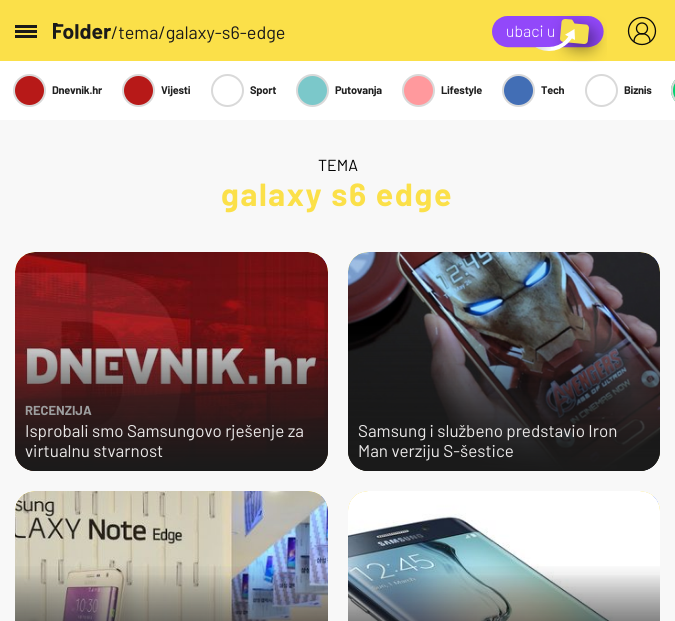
#include <cairo/cairo.h>
#include <math.h>
#include <stddef.h>

typedef struct { double x, y; const char *s; } line_t;
typedef struct { double x, y, w, h; unsigned color; } box_t;
static cairo_t *cr;

static void rgb(unsigned color)
{
	cairo_set_source_rgb(cr, (color >> 16) / 255.0, (color >> 8 & 255) / 255.0, (color & 255) / 255.0);
}

static void tracked(double x, double y, const char *s, double letter, double word)
{
	cairo_move_to(cr, x, y);
	while (*s) {
		char ch[5] = {0};
		int n = 0;
		do ch[n++] = *s++; while ((*s & 0xC0) == 0x80);
		cairo_show_text(cr, ch);
		cairo_rel_move_to(cr, letter + word * (*ch == ' '), 0);
	}
}

static void rrect(double x, double y, double w, double h, double r)
{
	cairo_new_sub_path(cr);
	cairo_arc(cr, x + w - r, y + h - r, r, 0, M_PI / 2);
	cairo_arc(cr, x + r, y + h - r, r, M_PI / 2, M_PI);
	cairo_arc(cr, x + r, y + r, r, M_PI, 1.5 * M_PI);
	cairo_arc(cr, x + w - r, y + r, r, 1.5 * M_PI, 2 * M_PI);
	cairo_close_path(cr);
}

static void image(const char *path, double x, double y, double w, double h)
{
	cairo_surface_t *image = cairo_image_surface_create_from_png(path);
	cairo_save(cr);
	cairo_set_source_surface(cr, image, x, y);
	cairo_rectangle(cr, x, y, w, h);
	cairo_fill(cr);
	cairo_restore(cr);
	cairo_surface_destroy(image);
}

int main(void) {
	cairo_surface_t *surface = cairo_image_surface_create(CAIRO_FORMAT_RGB24, 675, 621);
	cr = cairo_create(surface);
	cairo_font_options_t *options = cairo_font_options_create();
	cairo_font_options_set_hint_metrics(options, CAIRO_HINT_METRICS_OFF);
	cairo_font_options_set_hint_style(options, CAIRO_HINT_STYLE_NONE);
	cairo_set_font_options(cr, options);
	cairo_set_miter_limit(cr, 4);
	cairo_pattern_t *gradient;
	rgb(0xf8f8f8);
	cairo_paint(cr);
	{
		static const box_t items[] = {
			{0, 0, 675, 61, 0xfbe049},
			{15, 30, 22, 3, 0x1a1a1a},
			{15, 25, 22, 3, 0x1a1a1a},
			{15, 35, 22, 3, 0x1a1a1a},
		};
		for (size_t i = 0; i < sizeof items / sizeof *items; i++) {
			rgb(items[i].color);
			cairo_rectangle(cr, items[i].x, items[i].y, items[i].w, items[i].h);
			cairo_fill(cr);
		}
	}
	image("img/1.png", 53, 23, 58, 16);
	rgb(0xffffff);
	cairo_rectangle(cr, 0, 61, 675, 59);
	cairo_fill(cr);
	image("img/2.png", 492, 14, 115, 48);
	cairo_new_path(cr);
	cairo_move_to(cr, 650, 41.5);
	cairo_curve_to(cr, 650, 31, 634, 31, 634, 41.5);
	rgb(0x0a0a0a);
	cairo_set_line_width(cr, 1.3);
	cairo_set_line_cap(cr, CAIRO_LINE_CAP_ROUND);
	cairo_set_line_join(cr, CAIRO_LINE_JOIN_ROUND);
	cairo_stroke(cr);
	cairo_arc(cr, 642, 28.5, 5.5, 0, 2 * M_PI);
	cairo_set_line_cap(cr, CAIRO_LINE_CAP_BUTT);
	cairo_set_line_join(cr, CAIRO_LINE_JOIN_MITER);
	cairo_stroke(cr);
	cairo_arc(cr, 642, 31, 13.5, 0, 2 * M_PI);
	cairo_stroke(cr);
	rgb(0xb71918);
	cairo_arc(cr, 29.5, 90.5, 15.5, 0, 2 * M_PI);
	cairo_fill_preserve(cr);
	rgb(0xd9d9d9);
	cairo_set_line_width(cr, 2);
	cairo_stroke(cr);
	rgb(0xb71918);
	cairo_arc(cr, 138.5, 90.5, 15.5, 0, 2 * M_PI);
	cairo_fill_preserve(cr);
	rgb(0xd9d9d9);
	cairo_stroke(cr);
	cairo_arc(cr, 227.5, 90.5, 15.5, 0, 2 * M_PI);
	cairo_stroke(cr);
	rgb(0x7bc8ca);
	cairo_arc(cr, 312.5, 90.5, 15.5, 0, 2 * M_PI);
	cairo_fill_preserve(cr);
	rgb(0xd9d9d9);
	cairo_stroke(cr);
	rgb(0xff999d);
	cairo_arc(cr, 418.5, 90.5, 15.5, 0, 2 * M_PI);
	cairo_fill_preserve(cr);
	rgb(0xd9d9d9);
	cairo_stroke(cr);
	rgb(0x426eb5);
	cairo_arc(cr, 518.5, 90.5, 15.5, 0, 2 * M_PI);
	cairo_fill_preserve(cr);
	rgb(0xd9d9d9);
	cairo_stroke(cr);
	cairo_arc(cr, 601.5, 90.5, 15.5, 0, 2 * M_PI);
	cairo_stroke(cr);
	rgb(0x00d36e);
	cairo_new_path(cr);
	cairo_move_to(cr, 687.5, 74);
	cairo_line_to(cr, 675, 74);
	cairo_line_to(cr, 675, 107);
	cairo_line_to(cr, 687.5, 107);
	cairo_curve_to(cr, 678.5, 107, 671, 99.5, 671, 90.5);
	cairo_curve_to(cr, 671, 81.5, 678.5, 74, 687.5, 74);
	cairo_close_path(cr);
	cairo_fill(cr);
	rrect(672, 75, 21, 31, 15.5);
	rgb(0xd9d9d9);
	cairo_stroke(cr);
	image("img/3.png", 15, 252, 313, 219);
	image("img/4.png", 15, 252, 313, 219);
	gradient = cairo_pattern_create_linear(172, 252, 172, 471);
	cairo_pattern_add_color_stop_rgba(gradient, 0.37, 0.102, 0.102, 0.102, 0);
	cairo_pattern_add_color_stop_rgba(gradient, 1, 0.102, 0.102, 0.102, 1);
	cairo_set_source(cr, gradient);
	cairo_pattern_destroy(gradient);
	rrect(15, 252, 313, 219, 20);
	cairo_fill(cr);
	gradient = cairo_pattern_create_linear(172, 252, 172, 471);
	cairo_pattern_add_color_stop_rgba(gradient, 0.32, 0.102, 0.102, 0.102, 0);
	cairo_pattern_add_color_stop_rgba(gradient, 1, 0.102, 0.102, 0.102, 0.7);
	cairo_set_source(cr, gradient);
	cairo_pattern_destroy(gradient);
	rrect(15, 252, 313, 219, 20);
	cairo_fill(cr);
	image("img/5.png", 348, 252, 312, 219);
	image("img/6.png", 348, 252, 312, 219);
	gradient = cairo_pattern_create_linear(504, 252, 504, 471);
	cairo_pattern_add_color_stop_rgba(gradient, 0.37, 0.102, 0.102, 0.102, 0);
	cairo_pattern_add_color_stop_rgba(gradient, 1, 0.102, 0.102, 0.102, 1);
	cairo_set_source(cr, gradient);
	cairo_pattern_destroy(gradient);
	rrect(348, 252, 312, 219, 20);
	cairo_fill(cr);
	gradient = cairo_pattern_create_linear(504, 252, 504, 471);
	cairo_pattern_add_color_stop_rgba(gradient, 0.32, 0.102, 0.102, 0.102, 0);
	cairo_pattern_add_color_stop_rgba(gradient, 1, 0.102, 0.102, 0.102, 0.7);
	cairo_set_source(cr, gradient);
	cairo_pattern_destroy(gradient);
	rrect(348, 252, 312, 219, 20);
	cairo_fill(cr);
	image("img/7.png", 15, 491, 313, 20);
	image("img/8.png", 15, 491, 313, 130);
	gradient = cairo_pattern_create_linear(172, 491, 172, 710);
	cairo_pattern_add_color_stop_rgba(gradient, 0.37, 0.102, 0.102, 0.102, 0);
	cairo_pattern_add_color_stop_rgba(gradient, 1, 0.102, 0.102, 0.102, 1);
	cairo_set_source(cr, gradient);
	cairo_pattern_destroy(gradient);
	cairo_rectangle(cr, 15, 575, 313, 46);
	cairo_fill(cr);
	gradient = cairo_pattern_create_linear(172, 491, 172, 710);
	cairo_pattern_add_color_stop_rgba(gradient, 0.32, 0.102, 0.102, 0.102, 0);
	cairo_pattern_add_color_stop_rgba(gradient, 1, 0.102, 0.102, 0.102, 0.7);
	cairo_set_source(cr, gradient);
	cairo_pattern_destroy(gradient);
	cairo_rectangle(cr, 15, 566, 313, 55);
	cairo_fill(cr);
	image("img/9.png", 348, 491, 312, 20);
	image("img/10.png", 348, 491, 312, 130);
	gradient = cairo_pattern_create_linear(504, 491, 504, 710);
	cairo_pattern_add_color_stop_rgba(gradient, 0.37, 0.102, 0.102, 0.102, 0);
	cairo_pattern_add_color_stop_rgba(gradient, 1, 0.102, 0.102, 0.102, 1);
	cairo_set_source(cr, gradient);
	cairo_pattern_destroy(gradient);
	cairo_rectangle(cr, 348, 575, 312, 46);
	cairo_fill(cr);
	gradient = cairo_pattern_create_linear(504, 491, 504, 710);
	cairo_pattern_add_color_stop_rgba(gradient, 0.32, 0.102, 0.102, 0.102, 0);
	cairo_pattern_add_color_stop_rgba(gradient, 1, 0.102, 0.102, 0.102, 0.7);
	cairo_set_source(cr, gradient);
	cairo_pattern_destroy(gradient);
	cairo_rectangle(cr, 348, 566, 312, 55);
	cairo_fill(cr);
	cairo_select_font_face(cr, "Barlow", CAIRO_FONT_SLANT_NORMAL, CAIRO_FONT_WEIGHT_NORMAL);
	cairo_set_font_size(cr, 18);
	rgb(0x1a1a1a);
	cairo_move_to(cr, 111, 39);
	cairo_show_text(cr, "/tema/galaxy-s6-edge");
	cairo_select_font_face(cr, "Barlow", CAIRO_FONT_SLANT_NORMAL, CAIRO_FONT_WEIGHT_BOLD);
	cairo_set_font_size(cr, 11);
	rgb(0x202020);
	{
		static const line_t items[] = {
			{52, 94, "Dnevnik.hr"},
			{161, 94, "Vijesti"},
			{250, 94, "Sport"},
			{335, 94, "Putovanja"},
			{441, 94, "Lifestyle"},
			{541, 94, "Tech"},
			{624, 94, "Biznis"},
		};
		for (size_t i = 0; i < sizeof items / sizeof *items; i++) {
			tracked(items[i].x, items[i].y, items[i].s, -0.25, 0);
		}
	}
	cairo_select_font_face(cr, "Barlow", CAIRO_FONT_SLANT_NORMAL, CAIRO_FONT_WEIGHT_NORMAL);
	cairo_set_font_size(cr, 16);
	rgb(0x000000);
	cairo_move_to(cr, 318, 171);
	cairo_show_text(cr, "TEMA");
	cairo_select_font_face(cr, "Barlow", CAIRO_FONT_SLANT_NORMAL, CAIRO_FONT_WEIGHT_BOLD);
	cairo_set_font_size(cr, 32);
	rgb(0xfbe049);
	tracked(221, 206, "galaxy s6 edge", 1.6, 0);
	cairo_set_font_size(cr, 13);
	rgb(0x9d9e9f);
	cairo_move_to(cr, 25, 415);
	cairo_show_text(cr, "RECENZIJA");
	cairo_select_font_face(cr, "Barlow", CAIRO_FONT_SLANT_NORMAL, CAIRO_FONT_WEIGHT_NORMAL);
	cairo_set_font_size(cr, 17);
	rgb(0xeae8e8);
	{
		static const line_t items[] = {
			{25, 437, "Isprobali smo Samsungovo rješenje za"},
			{25, 457, "virtualnu stvarnost"},
			{358, 437, "Samsung i službeno predstavio Iron"},
			{358, 457, "Man verziju S-šestice"},
		};
		for (size_t i = 0; i < sizeof items / sizeof *items; i++) {
			cairo_move_to(cr, items[i].x, items[i].y);
			cairo_show_text(cr, items[i].s);
		}
	}
	cairo_surface_write_to_png(surface, "page.png");
	cairo_font_options_destroy(options);
	cairo_destroy(cr);
	cairo_surface_destroy(surface);
	return 0;
}
